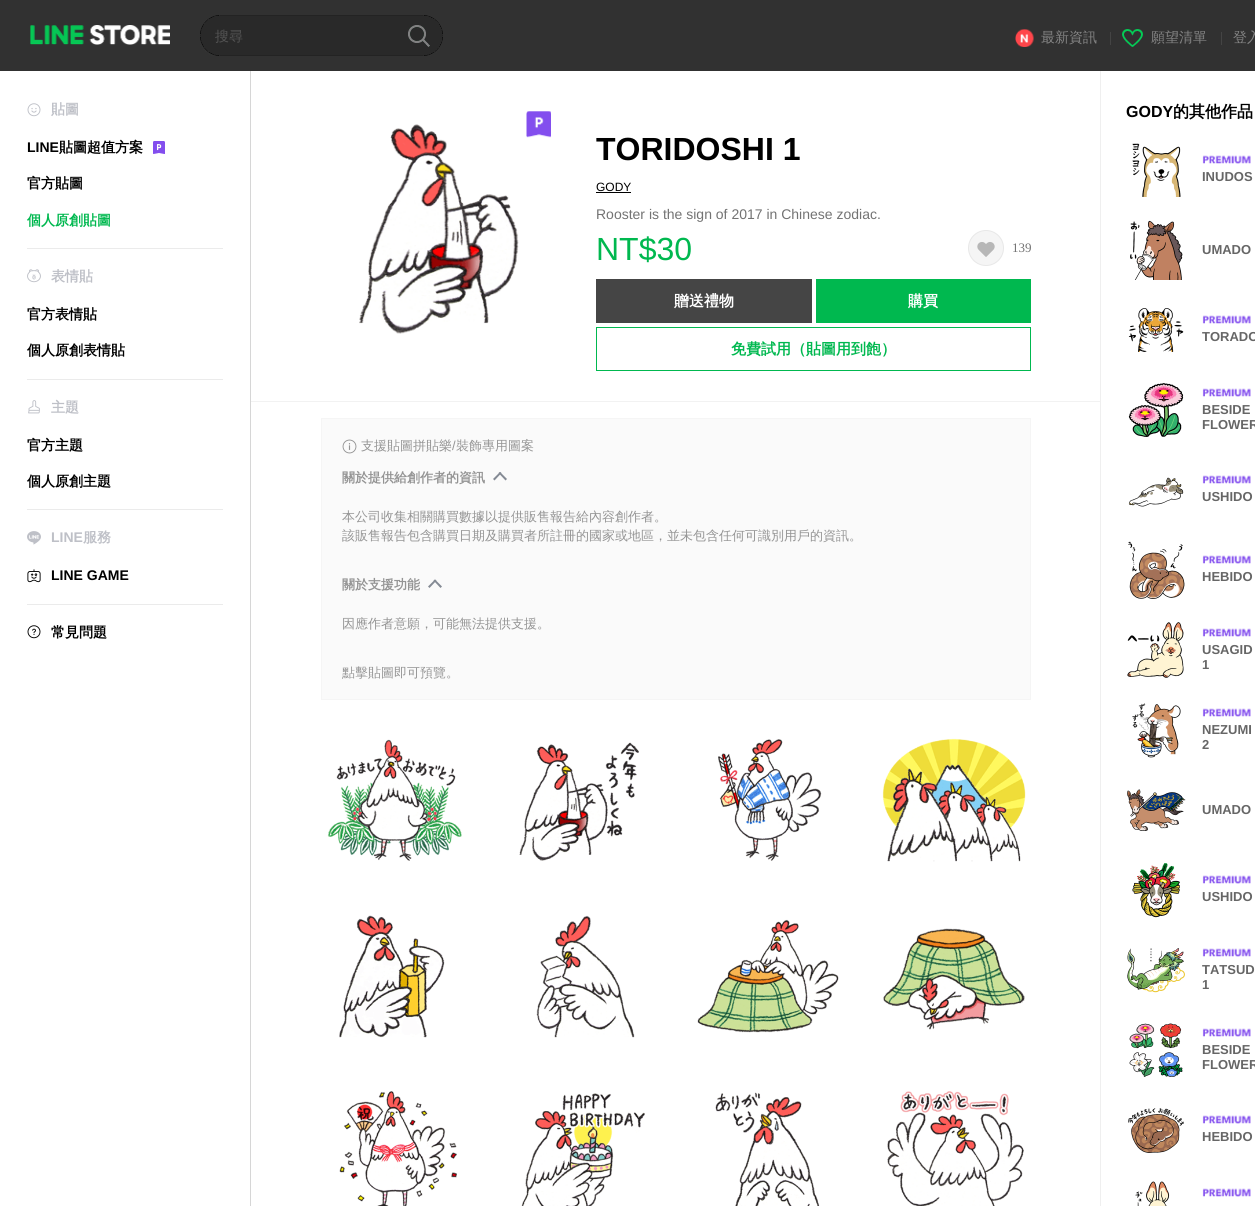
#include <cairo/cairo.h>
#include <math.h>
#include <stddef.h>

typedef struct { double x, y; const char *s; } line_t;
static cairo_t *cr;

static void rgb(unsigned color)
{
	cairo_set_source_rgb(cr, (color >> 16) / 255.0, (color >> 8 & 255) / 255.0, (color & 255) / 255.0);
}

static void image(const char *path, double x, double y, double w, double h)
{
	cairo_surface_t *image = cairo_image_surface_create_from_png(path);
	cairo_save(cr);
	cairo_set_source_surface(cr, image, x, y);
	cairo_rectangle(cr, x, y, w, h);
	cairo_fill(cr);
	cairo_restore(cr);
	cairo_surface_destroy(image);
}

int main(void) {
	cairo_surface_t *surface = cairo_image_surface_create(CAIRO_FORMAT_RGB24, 1255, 1206);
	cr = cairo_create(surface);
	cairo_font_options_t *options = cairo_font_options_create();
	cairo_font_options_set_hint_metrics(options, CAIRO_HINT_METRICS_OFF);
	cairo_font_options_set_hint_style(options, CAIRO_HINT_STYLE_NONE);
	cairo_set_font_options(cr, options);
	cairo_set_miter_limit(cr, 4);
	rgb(0xffffff);
	cairo_paint(cr);
	rgb(0x313131);
	cairo_rectangle(cr, 0, 0, 1255, 71);
	cairo_fill(cr);
	image("img/1.png", 30, 25, 140, 20);
	image("img/2.png", 200, 15, 243, 41);
	image("img/3.png", 408, 25, 22, 22);
	image("img/4.png", 1015, 29, 19, 18);
	rgb(0x444444);
	cairo_rectangle(cr, 1110, 32, 1, 13);
	cairo_fill(cr);
	image("img/5.png", 1122, 29, 21, 18);
	cairo_rectangle(cr, 1221, 32, 1, 13);
	cairo_fill(cr);
	image("img/6.png", 27, 103, 14, 14);
	image("img/7.png", 153, 141, 12, 13);
	rgb(0xebebeb);
	cairo_rectangle(cr, 27, 248, 196, 1);
	cairo_fill(cr);
	image("img/8.png", 27, 269, 14, 14);
	cairo_rectangle(cr, 27, 379, 196, 1);
	cairo_fill(cr);
	image("img/9.png", 28, 400, 12, 14);
	cairo_rectangle(cr, 27, 509, 196, 1);
	cairo_fill(cr);
	image("img/10.png", 27, 531, 14, 14);
	image("img/11.png", 27, 569, 14, 14);
	cairo_rectangle(cr, 27, 604, 196, 1);
	cairo_fill(cr);
	image("img/12.png", 27, 625, 14, 14);
	rgb(0xd6d6d6);
	cairo_rectangle(cr, 250, 71, 1, 1135);
	cairo_fill(cr);
	image("img/13.png", 359, 124, 160, 210);
	image("img/14.png", 526, 111, 25, 27);
	rgb(0x000000);
	cairo_rectangle(cr, 596, 192, 35, 1);
	cairo_fill(cr);
	image("img/15.png", 968, 230, 36, 36);
	rgb(0x454545);
	cairo_rectangle(cr, 596, 279, 216, 44);
	cairo_fill(cr);
	rgb(0x00b84f);
	cairo_rectangle(cr, 816, 279, 215, 44);
	cairo_fill(cr);
	cairo_rectangle(cr, 596.5, 327.5, 434, 43);
	cairo_set_line_width(cr, 1);
	cairo_stroke(cr);
	rgb(0xf2f2f2);
	cairo_rectangle(cr, 251, 401, 850, 1);
	cairo_fill(cr);
	rgb(0xefefef);
	cairo_rectangle(cr, 1100, 71, 1, 1135);
	cairo_fill(cr);
	rgb(0xfafafa);
	cairo_rectangle(cr, 321.5, 418.5, 709, 281);
	cairo_fill_preserve(cr);
	rgb(0xf5f5f5);
	cairo_stroke(cr);
	image("img/16.png", 342, 439, 15, 15);
	rgb(0x848a94);
	cairo_new_path(cr);
	cairo_move_to(cr, 493, 479);
	cairo_line_to(cr, 500, 472);
	cairo_line_to(cr, 501.5, 473);
	cairo_line_to(cr, 494.5, 480.5);
	cairo_close_path(cr);
	cairo_fill(cr);
	cairo_new_path(cr);
	cairo_move_to(cr, 498.5, 473);
	cairo_line_to(cr, 500, 472);
	cairo_line_to(cr, 507, 479);
	cairo_line_to(cr, 505.5, 480.5);
	cairo_close_path(cr);
	cairo_fill(cr);
	cairo_new_path(cr);
	cairo_move_to(cr, 428, 586.5);
	cairo_line_to(cr, 435, 579.5);
	cairo_line_to(cr, 436.5, 580.5);
	cairo_line_to(cr, 429.5, 588);
	cairo_close_path(cr);
	cairo_fill(cr);
	cairo_new_path(cr);
	cairo_move_to(cr, 433.5, 580.5);
	cairo_line_to(cr, 435, 579.5);
	cairo_line_to(cr, 442, 586.5);
	cairo_line_to(cr, 440.5, 588);
	cairo_close_path(cr);
	cairo_fill(cr);
	image("img/17.png", 327, 739, 135, 122);
	image("img/18.png", 519, 742, 120, 119);
	image("img/19.png", 718, 739, 104, 122);
	image("img/20.png", 882, 738, 144, 124);
	image("img/21.png", 339, 915, 106, 123);
	image("img/22.png", 536, 915, 99, 123);
	image("img/23.png", 697, 919, 142, 114);
	image("img/24.png", 883, 928, 142, 102);
	image("img/25.png", 339, 1091, 118, 115);
	image("img/26.png", 521, 1093, 124, 113);
	image("img/27.png", 715, 1092, 105, 114);
	image("img/28.png", 887, 1091, 137, 115);
	image("img/29.png", 1132, 143, 49, 54);
	image("img/30.png", 1202, 155, 49, 9);
	image("img/31.png", 1130, 220, 53, 60);
	image("img/32.png", 1128, 308, 56, 44);
	image("img/30.png", 1202, 315, 49, 9);
	image("img/33.png", 1128, 383, 56, 54);
	image("img/30.png", 1202, 388, 49, 9);
	image("img/34.png", 1128, 477, 56, 30);
	image("img/30.png", 1202, 475, 49, 9);
	image("img/35.png", 1128, 541, 57, 58);
	image("img/30.png", 1202, 555, 49, 9);
	image("img/36.png", 1127, 622, 57, 56);
	image("img/30.png", 1202, 628, 49, 9);
	image("img/37.png", 1132, 703, 49, 55);
	image("img/30.png", 1202, 708, 49, 9);
	image("img/38.png", 1127, 789, 59, 42);
	image("img/39.png", 1132, 863, 48, 55);
	image("img/30.png", 1202, 875, 49, 9);
	image("img/40.png", 1127, 948, 58, 45);
	image("img/30.png", 1202, 948, 49, 9);
	image("img/41.png", 1129, 1023, 54, 54);
	image("img/30.png", 1202, 1028, 49, 9);
	image("img/42.png", 1128, 1108, 56, 45);
	image("img/30.png", 1202, 1115, 49, 9);
	image("img/43.png", 1135, 1181, 35, 25);
	image("img/30.png", 1202, 1188, 49, 9);
	cairo_select_font_face(cr, "WenQuanYi Zen Hei Medium", CAIRO_FONT_SLANT_NORMAL, CAIRO_FONT_WEIGHT_NORMAL);
	cairo_set_font_size(cr, 14);
	rgb(0x545454);
	cairo_move_to(cr, 215, 41);
	cairo_show_text(cr, "搜尋");
	rgb(0x848484);
	{
		static const line_t items[] = {
			{1041, 42, "最新資訊"},
			{1151, 42, "願望清單"},
			{1233, 42, "登入"},
		};
		for (size_t i = 0; i < sizeof items / sizeof *items; i++) {
			cairo_move_to(cr, items[i].x, items[i].y);
			cairo_show_text(cr, items[i].s);
		}
	}
	cairo_select_font_face(cr, "WenQuanYi Zen Hei", CAIRO_FONT_SLANT_NORMAL, CAIRO_FONT_WEIGHT_BOLD);
	rgb(0xbec0c7);
	cairo_move_to(cr, 51, 114);
	cairo_show_text(cr, "貼圖");
	cairo_select_font_face(cr, "Liberation Sans", CAIRO_FONT_SLANT_NORMAL, CAIRO_FONT_WEIGHT_BOLD);
	rgb(0x000000);
	cairo_move_to(cr, 27, 152);
	cairo_show_text(cr, "LINE");
	cairo_select_font_face(cr, "WenQuanYi Zen Hei", CAIRO_FONT_SLANT_NORMAL, CAIRO_FONT_WEIGHT_BOLD);
	cairo_move_to(cr, 59, 152);
	cairo_show_text(cr, "貼圖超值方案");
	cairo_move_to(cr, 27, 188);
	cairo_show_text(cr, "官方貼圖");
	rgb(0x00b84f);
	cairo_move_to(cr, 27, 225);
	cairo_show_text(cr, "個人原創貼圖");
	rgb(0xbec0c7);
	cairo_move_to(cr, 51, 281);
	cairo_show_text(cr, "表情貼");
	rgb(0x000000);
	cairo_move_to(cr, 27, 319);
	cairo_show_text(cr, "官方表情貼");
	cairo_move_to(cr, 27, 355);
	cairo_show_text(cr, "個人原創表情貼");
	rgb(0xbec0c7);
	cairo_move_to(cr, 51, 412);
	cairo_show_text(cr, "主題");
	rgb(0x000000);
	cairo_move_to(cr, 27, 450);
	cairo_show_text(cr, "官方主題");
	cairo_move_to(cr, 27, 486);
	cairo_show_text(cr, "個人原創主題");
	cairo_select_font_face(cr, "Liberation Sans", CAIRO_FONT_SLANT_NORMAL, CAIRO_FONT_WEIGHT_BOLD);
	rgb(0xbec0c7);
	cairo_move_to(cr, 51, 542);
	cairo_show_text(cr, "LINE");
	cairo_select_font_face(cr, "WenQuanYi Zen Hei", CAIRO_FONT_SLANT_NORMAL, CAIRO_FONT_WEIGHT_BOLD);
	cairo_move_to(cr, 83, 542);
	cairo_show_text(cr, "服務");
	cairo_select_font_face(cr, "Liberation Sans", CAIRO_FONT_SLANT_NORMAL, CAIRO_FONT_WEIGHT_BOLD);
	rgb(0x000000);
	cairo_move_to(cr, 51, 580);
	cairo_show_text(cr, "LINE GAME");
	cairo_select_font_face(cr, "WenQuanYi Zen Hei", CAIRO_FONT_SLANT_NORMAL, CAIRO_FONT_WEIGHT_BOLD);
	cairo_move_to(cr, 51, 637);
	cairo_show_text(cr, "常見問題");
	cairo_select_font_face(cr, "Liberation Sans", CAIRO_FONT_SLANT_NORMAL, CAIRO_FONT_WEIGHT_BOLD);
	cairo_set_font_size(cr, 32);
	cairo_move_to(cr, 596, 160);
	cairo_show_text(cr, "TORIDOSHI 1");
	cairo_select_font_face(cr, "Liberation Sans", CAIRO_FONT_SLANT_NORMAL, CAIRO_FONT_WEIGHT_NORMAL);
	cairo_set_font_size(cr, 12);
	cairo_move_to(cr, 596, 191);
	cairo_show_text(cr, "GODY");
	cairo_set_font_size(cr, 14);
	rgb(0x737373);
	cairo_move_to(cr, 596, 219);
	cairo_show_text(cr, "Rooster is the sign of 2017 in Chinese zodiac.");
	cairo_set_font_size(cr, 32);
	rgb(0x00b84f);
	cairo_move_to(cr, 596, 260);
	cairo_show_text(cr, "NT$30");
	cairo_select_font_face(cr, "Liberation Serif", CAIRO_FONT_SLANT_NORMAL, CAIRO_FONT_WEIGHT_NORMAL);
	cairo_set_font_size(cr, 13);
	rgb(0x737373);
	cairo_move_to(cr, 1012, 252);
	cairo_show_text(cr, "139");
	cairo_select_font_face(cr, "WenQuanYi Zen Hei", CAIRO_FONT_SLANT_NORMAL, CAIRO_FONT_WEIGHT_BOLD);
	cairo_set_font_size(cr, 15);
	rgb(0xffffff);
	cairo_move_to(cr, 674, 306);
	cairo_show_text(cr, "贈送禮物");
	cairo_move_to(cr, 908, 306);
	cairo_show_text(cr, "購買");
	rgb(0x00b84f);
	cairo_move_to(cr, 731, 354);
	cairo_show_text(cr, "免費試用（貼圖用到飽）");
	cairo_select_font_face(cr, "WenQuanYi Zen Hei Medium", CAIRO_FONT_SLANT_NORMAL, CAIRO_FONT_WEIGHT_NORMAL);
	cairo_set_font_size(cr, 13);
	rgb(0x949494);
	cairo_move_to(cr, 361, 450);
	cairo_show_text(cr, "支援貼圖拼貼樂 裝飾專用圖案");
	cairo_select_font_face(cr, "Liberation Sans", CAIRO_FONT_SLANT_NORMAL, CAIRO_FONT_WEIGHT_NORMAL);
	cairo_move_to(cr, 452, 450);
	cairo_show_text(cr, "/");
	cairo_select_font_face(cr, "WenQuanYi Zen Hei", CAIRO_FONT_SLANT_NORMAL, CAIRO_FONT_WEIGHT_BOLD);
	cairo_move_to(cr, 342, 482);
	cairo_show_text(cr, "關於提供給創作者的資訊");
	cairo_select_font_face(cr, "WenQuanYi Zen Hei Medium", CAIRO_FONT_SLANT_NORMAL, CAIRO_FONT_WEIGHT_NORMAL);
	cairo_move_to(cr, 342, 521);
	cairo_show_text(cr, "本公司收集相關購買數據以提供販售報告給內容創作者。");
	cairo_move_to(cr, 342, 540);
	cairo_show_text(cr, "該販售報告包含購買日期及購買者所註冊的國家或地區，並未包含任何可識別用戶的資訊。");
	cairo_select_font_face(cr, "WenQuanYi Zen Hei", CAIRO_FONT_SLANT_NORMAL, CAIRO_FONT_WEIGHT_BOLD);
	cairo_move_to(cr, 342, 589);
	cairo_show_text(cr, "關於支援功能");
	cairo_select_font_face(cr, "WenQuanYi Zen Hei Medium", CAIRO_FONT_SLANT_NORMAL, CAIRO_FONT_WEIGHT_NORMAL);
	cairo_move_to(cr, 342, 628);
	cairo_show_text(cr, "因應作者意願，可能無法提供支援。");
	cairo_move_to(cr, 342, 677);
	cairo_show_text(cr, "點擊貼圖即可預覽。");
	cairo_select_font_face(cr, "Liberation Sans", CAIRO_FONT_SLANT_NORMAL, CAIRO_FONT_WEIGHT_BOLD);
	cairo_set_font_size(cr, 16);
	rgb(0x000000);
	cairo_move_to(cr, 1126, 117);
	cairo_show_text(cr, "GODY");
	cairo_select_font_face(cr, "WenQuanYi Zen Hei", CAIRO_FONT_SLANT_NORMAL, CAIRO_FONT_WEIGHT_BOLD);
	cairo_move_to(cr, 1173, 117);
	cairo_show_text(cr, "的其他作品");
	cairo_select_font_face(cr, "Liberation Sans", CAIRO_FONT_SLANT_NORMAL, CAIRO_FONT_WEIGHT_BOLD);
	cairo_set_font_size(cr, 13);
	rgb(0x666666);
	{
		static const line_t items[] = {
			{1202, 181, "INUDOS"},
			{1202, 254, "UMADO"},
			{1202, 341, "TORADO"},
			{1202, 414, "BESIDE"},
			{1202, 429, "FLOWER"},
			{1202, 501, "USHIDO"},
			{1202, 581, "HEBIDO"},
			{1202, 654, "USAGID"},
			{1202, 669, "1"},
			{1202, 734, "NEZUMI"},
			{1202, 749, "2"},
			{1202, 814, "UMADO"},
			{1202, 901, "USHIDO"},
			{1202, 974, "TATSUD"},
			{1202, 989, "1"},
			{1202, 1054, "BESIDE"},
			{1202, 1069, "FLOWER"},
			{1202, 1141, "HEBIDO"},
		};
		for (size_t i = 0; i < sizeof items / sizeof *items; i++) {
			cairo_move_to(cr, items[i].x, items[i].y);
			cairo_show_text(cr, items[i].s);
		}
	}
	cairo_surface_write_to_png(surface, "page.png");
	cairo_font_options_destroy(options);
	cairo_destroy(cr);
	cairo_surface_destroy(surface);
	return 0;
}
